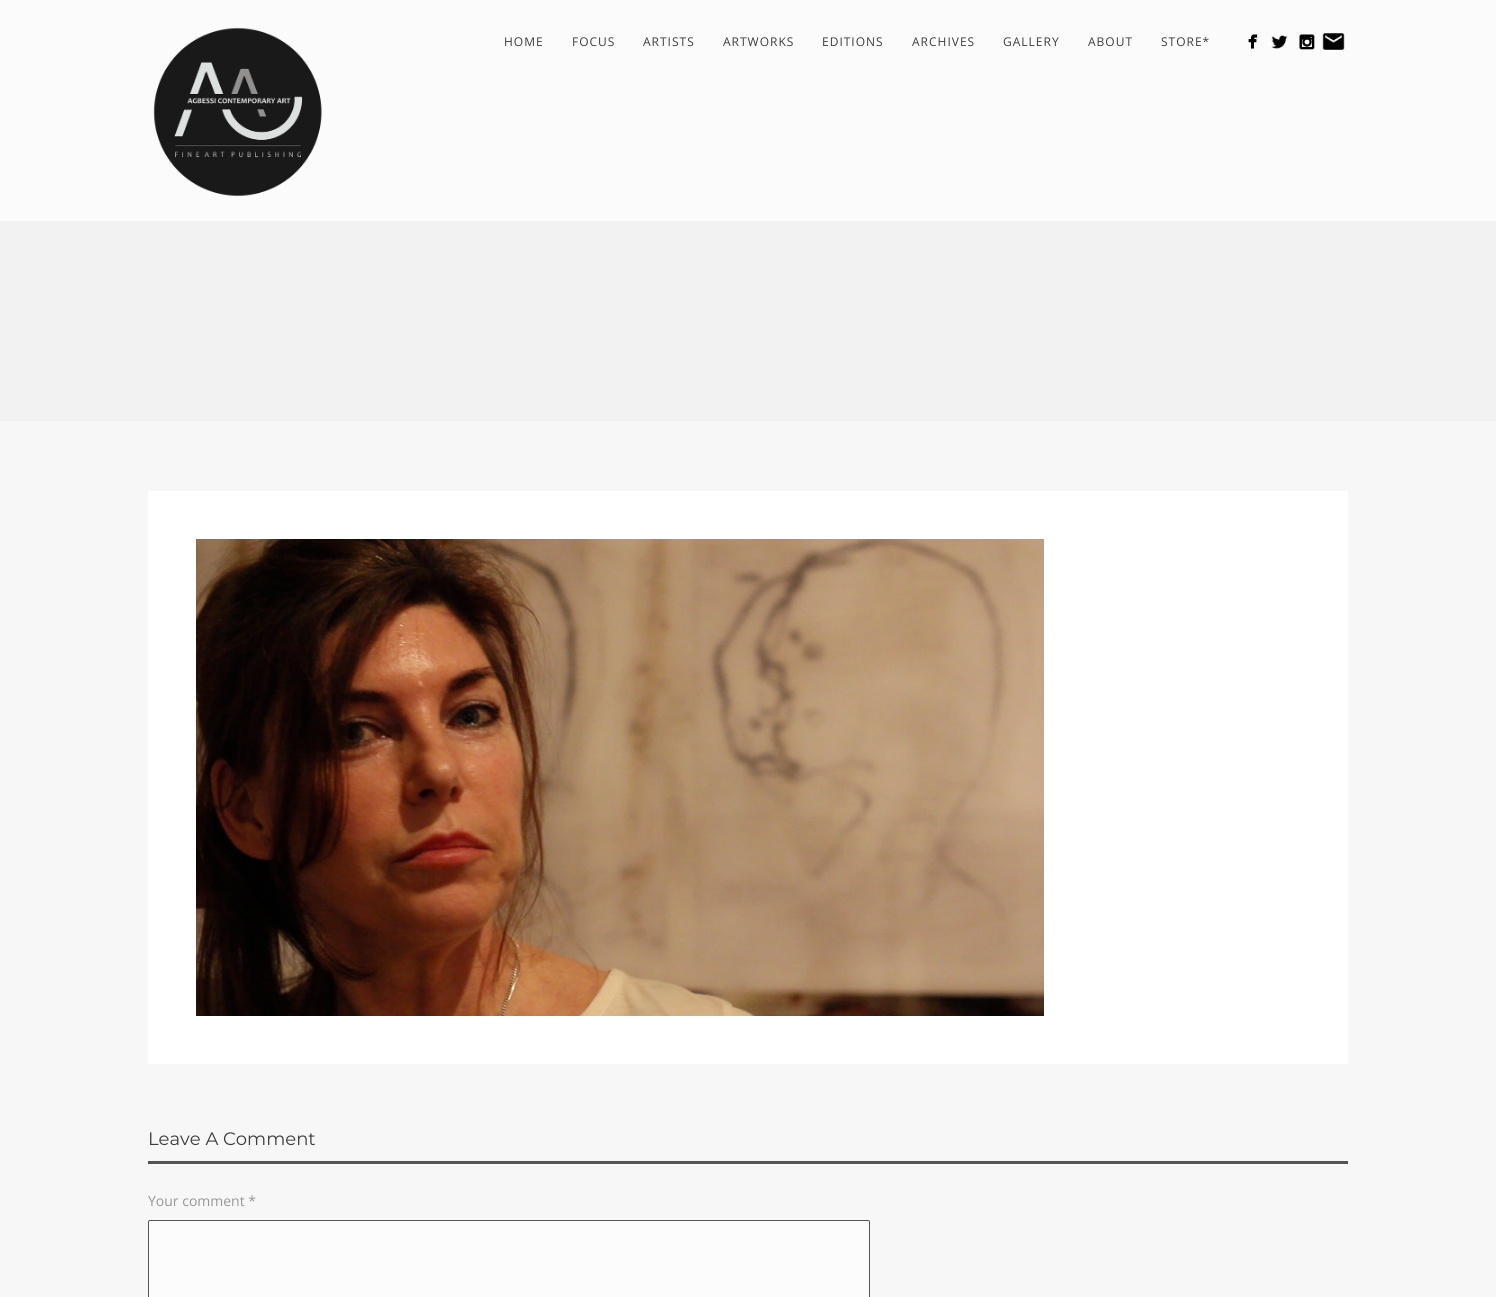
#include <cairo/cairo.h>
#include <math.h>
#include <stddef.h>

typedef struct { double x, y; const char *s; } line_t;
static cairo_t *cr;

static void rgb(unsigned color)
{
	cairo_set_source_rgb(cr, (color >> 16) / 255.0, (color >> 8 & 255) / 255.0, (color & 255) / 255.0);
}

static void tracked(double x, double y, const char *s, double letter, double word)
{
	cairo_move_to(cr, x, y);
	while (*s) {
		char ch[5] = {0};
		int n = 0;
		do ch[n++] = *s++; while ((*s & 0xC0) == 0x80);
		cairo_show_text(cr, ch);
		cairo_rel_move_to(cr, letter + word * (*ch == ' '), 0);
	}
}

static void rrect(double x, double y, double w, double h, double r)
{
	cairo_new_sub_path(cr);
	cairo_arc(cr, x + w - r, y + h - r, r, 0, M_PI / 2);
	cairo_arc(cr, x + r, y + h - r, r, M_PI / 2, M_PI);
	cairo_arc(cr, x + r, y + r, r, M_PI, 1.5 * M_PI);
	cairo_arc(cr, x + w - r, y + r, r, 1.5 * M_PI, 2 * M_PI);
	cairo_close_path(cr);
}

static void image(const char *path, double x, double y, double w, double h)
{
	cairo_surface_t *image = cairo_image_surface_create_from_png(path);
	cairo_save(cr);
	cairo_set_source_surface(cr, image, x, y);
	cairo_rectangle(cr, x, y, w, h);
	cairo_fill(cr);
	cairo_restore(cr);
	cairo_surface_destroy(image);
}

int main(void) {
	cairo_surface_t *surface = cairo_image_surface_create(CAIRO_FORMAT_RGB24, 1496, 1297);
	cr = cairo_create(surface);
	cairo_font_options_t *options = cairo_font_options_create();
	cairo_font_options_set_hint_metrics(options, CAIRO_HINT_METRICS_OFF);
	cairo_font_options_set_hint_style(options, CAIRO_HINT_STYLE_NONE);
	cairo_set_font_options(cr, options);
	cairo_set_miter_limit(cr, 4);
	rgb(0xf7f7f7);
	cairo_paint(cr);
	rgb(0xf2f2f2);
	cairo_rectangle(cr, 0, 221, 1496, 200);
	cairo_fill(cr);
	rgb(0xfbfbfb);
	cairo_rectangle(cr, 0, 0, 1496, 221);
	cairo_fill(cr);
	image("img/1.png", 153, 27, 169, 170);
	image("img/2.png", 1248, 34, 10, 15);
	image("img/3.png", 1271, 35, 17, 14);
	image("img/4.png", 1299, 34, 16, 16);
	image("img/5.png", 1322, 33, 23, 17);
	rgb(0xffffff);
	cairo_rectangle(cr, 148, 491, 1200, 573);
	cairo_fill(cr);
	image("img/6.png", 196, 539, 848, 477);
	rgb(0x545454);
	cairo_rectangle(cr, 148, 1161, 1200, 3);
	cairo_fill(cr);
	rgb(0xfcfcfc);
	rrect(148.5, 1220.5, 721, 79, 1.5);
	cairo_fill_preserve(cr);
	rgb(0x545454);
	cairo_set_line_width(cr, 1);
	cairo_stroke(cr);
	cairo_select_font_face(cr, "Open Sans", CAIRO_FONT_SLANT_NORMAL, CAIRO_FONT_WEIGHT_NORMAL);
	cairo_set_font_size(cr, 12);
	rgb(0x3d3d3d);
	{
		static const line_t items[] = {
			{504, 46, "HOME"},
			{572, 46, "FOCUS"},
			{643, 46, "ARTISTS"},
			{723, 46, "ARTWORKS"},
			{822, 46, "EDITIONS"},
			{912, 46, "ARCHIVES"},
			{1003, 46, "GALLERY"},
			{1088, 46, "ABOUT"},
			{1161, 46, "STORE*"},
		};
		for (size_t i = 0; i < sizeof items / sizeof *items; i++) {
			tracked(items[i].x, items[i].y, items[i].s, 1, 0);
		}
	}
	cairo_select_font_face(cr, "Montserrat", CAIRO_FONT_SLANT_NORMAL, CAIRO_FONT_WEIGHT_NORMAL);
	cairo_set_font_size(cr, 18);
	cairo_move_to(cr, 148, 1145);
	cairo_show_text(cr, "Leave A Comment");
	cairo_select_font_face(cr, "Open Sans", CAIRO_FONT_SLANT_NORMAL, CAIRO_FONT_WEIGHT_NORMAL);
	cairo_set_font_size(cr, 14);
	rgb(0x969696);
	cairo_move_to(cr, 148, 1206);
	cairo_show_text(cr, "Your comment *");
	cairo_surface_write_to_png(surface, "page.png");
	cairo_font_options_destroy(options);
	cairo_destroy(cr);
	cairo_surface_destroy(surface);
	return 0;
}
